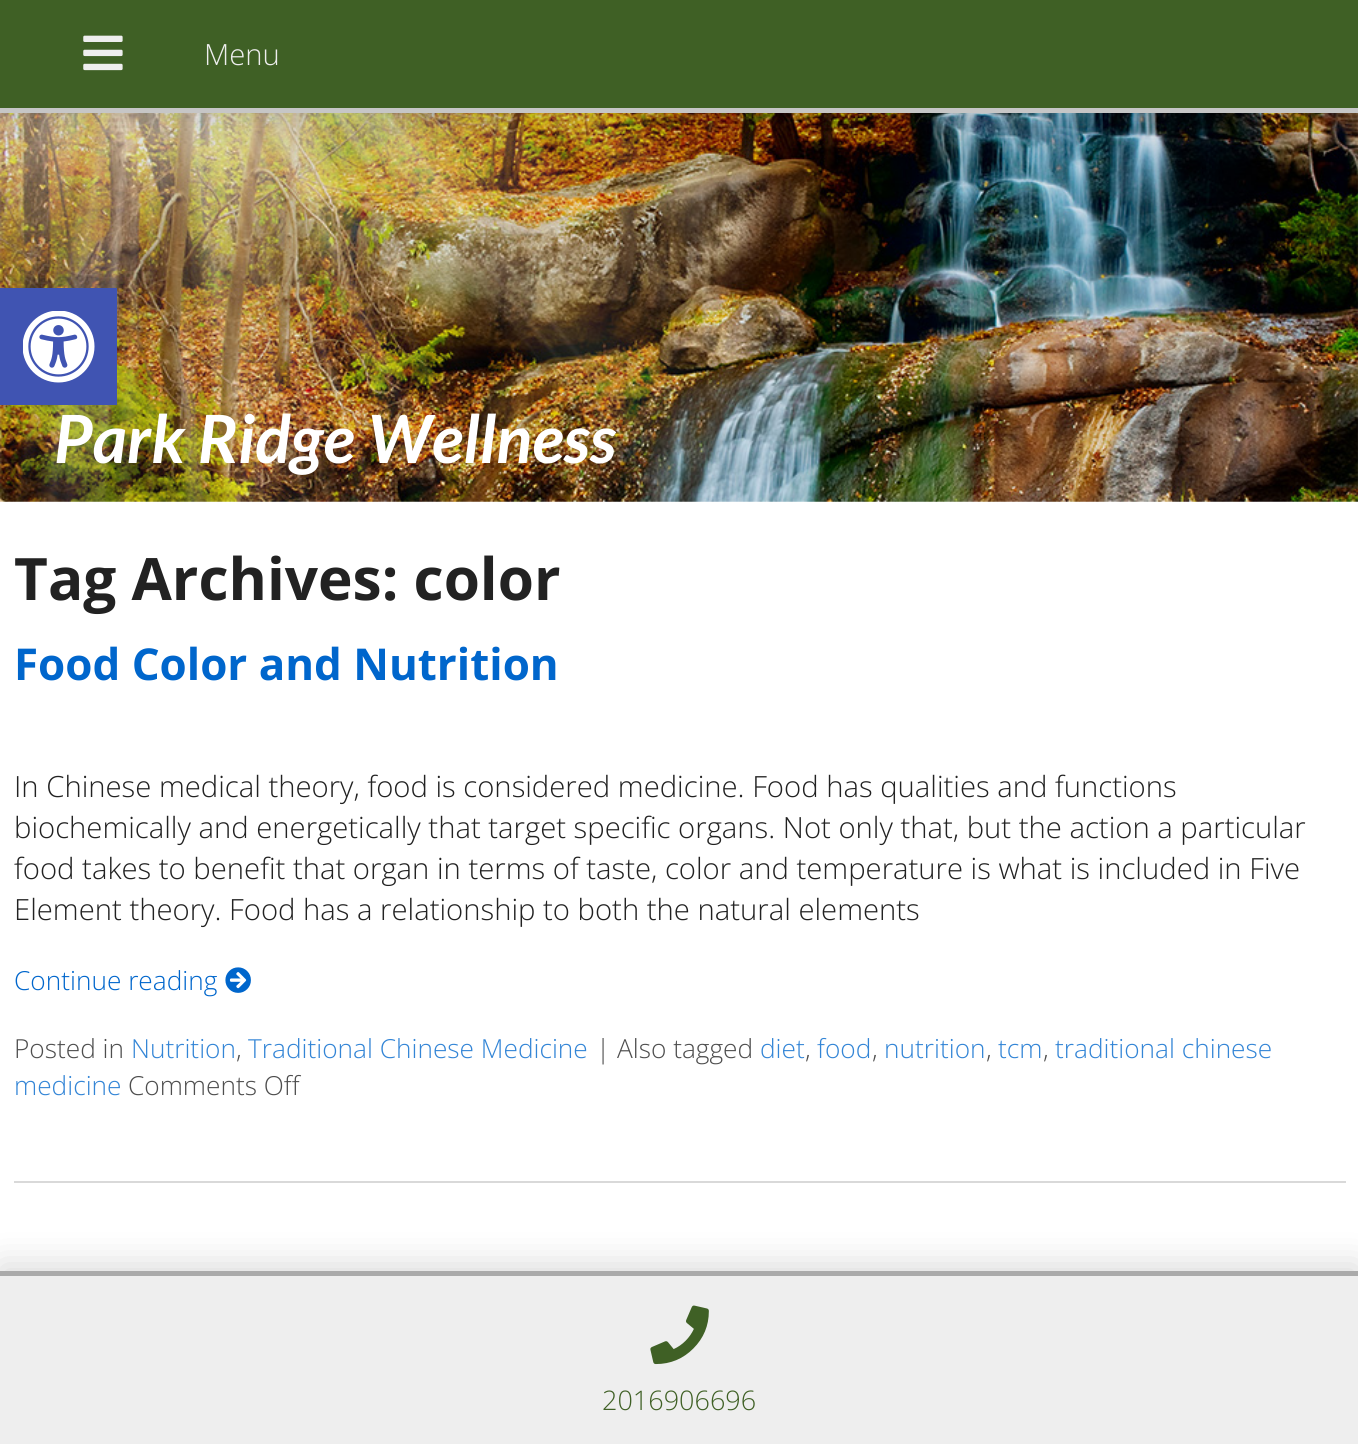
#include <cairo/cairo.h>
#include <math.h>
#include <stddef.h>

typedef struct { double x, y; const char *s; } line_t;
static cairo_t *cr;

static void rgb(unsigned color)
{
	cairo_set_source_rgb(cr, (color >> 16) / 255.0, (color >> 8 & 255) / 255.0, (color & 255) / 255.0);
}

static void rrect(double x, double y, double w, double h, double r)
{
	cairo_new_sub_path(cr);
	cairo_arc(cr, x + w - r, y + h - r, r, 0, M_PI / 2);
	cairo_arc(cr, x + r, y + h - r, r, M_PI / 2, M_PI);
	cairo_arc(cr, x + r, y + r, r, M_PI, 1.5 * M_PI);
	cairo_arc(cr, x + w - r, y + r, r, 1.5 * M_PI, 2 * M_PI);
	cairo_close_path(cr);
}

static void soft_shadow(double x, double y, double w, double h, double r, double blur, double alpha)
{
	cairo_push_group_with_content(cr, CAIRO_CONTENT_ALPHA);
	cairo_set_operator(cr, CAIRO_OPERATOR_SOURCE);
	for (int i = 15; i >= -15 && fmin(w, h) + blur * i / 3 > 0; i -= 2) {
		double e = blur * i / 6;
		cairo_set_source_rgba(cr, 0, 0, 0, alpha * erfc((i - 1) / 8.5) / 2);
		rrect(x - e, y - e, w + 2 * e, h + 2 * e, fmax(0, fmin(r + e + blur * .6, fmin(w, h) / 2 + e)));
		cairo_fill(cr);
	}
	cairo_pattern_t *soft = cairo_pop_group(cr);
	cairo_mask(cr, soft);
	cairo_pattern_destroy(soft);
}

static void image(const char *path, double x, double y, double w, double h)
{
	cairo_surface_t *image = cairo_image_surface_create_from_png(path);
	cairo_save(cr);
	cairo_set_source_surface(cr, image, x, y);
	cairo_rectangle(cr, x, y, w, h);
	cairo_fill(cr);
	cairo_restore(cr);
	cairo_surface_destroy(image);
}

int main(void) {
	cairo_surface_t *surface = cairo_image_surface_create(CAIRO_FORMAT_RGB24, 1358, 1444);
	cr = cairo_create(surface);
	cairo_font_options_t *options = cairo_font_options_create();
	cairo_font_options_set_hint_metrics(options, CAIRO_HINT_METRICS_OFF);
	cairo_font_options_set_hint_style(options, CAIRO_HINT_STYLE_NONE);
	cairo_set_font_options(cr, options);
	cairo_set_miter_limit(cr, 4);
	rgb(0xffffff);
	cairo_paint(cr);
	image("img/2.png", 0, 113, 1358, 389);
	rgb(0x000000);
	soft_shadow(0, 7, 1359, 112, 0, 18, 0.15);
	rgb(0x3f6025);
	cairo_rectangle(cr, 0, 0, 1358, 108);
	cairo_fill(cr);
	rgb(0xc6c6c6);
	cairo_rectangle(cr, 0, 108, 1358, 5);
	cairo_fill(cr);
	image("img/1.png", 83, 35, 40, 36);
	rgb(0xd9d9d9);
	cairo_rectangle(cr, 14, 1181, 1332, 2);
	cairo_fill(cr);
	image("img/3.png", 225, 967, 26, 26);
	rgb(0x000000);
	soft_shadow(0, 288, 117, 117, 0, 11, 0.1);
	rgb(0x4054b2);
	cairo_rectangle(cr, 0, 288, 117, 117);
	cairo_fill(cr);
	image("img/4.png", 23, 311, 72, 72);
	rgb(0x000000);
	soft_shadow(0, 1265, 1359, 173, 0, 18, 0.15);
	rgb(0xeeeeee);
	cairo_rectangle(cr, 0, 1276, 1358, 168);
	cairo_fill(cr);
	rgb(0xaaaaaa);
	cairo_rectangle(cr, 0, 1271, 1358, 5);
	cairo_fill(cr);
	image("img/5.png", 650, 1305, 59, 60);
	cairo_select_font_face(cr, "Open Sans Light", CAIRO_FONT_SLANT_NORMAL, CAIRO_FONT_WEIGHT_NORMAL);
	cairo_set_font_size(cr, 29.25);
	rgb(0xeeeeee);
	cairo_move_to(cr, 204, 65);
	cairo_show_text(cr, "Menu");
	cairo_select_font_face(cr, "Lato", CAIRO_FONT_SLANT_ITALIC, CAIRO_FONT_WEIGHT_BOLD);
	cairo_set_font_size(cr, 66.5);
	rgb(0xffffff);
	cairo_move_to(cr, 54, 463);
	cairo_show_text(cr, "Park Ridge Wellness");
	cairo_select_font_face(cr, "Open Sans", CAIRO_FONT_SLANT_NORMAL, CAIRO_FONT_WEIGHT_BOLD);
	cairo_set_font_size(cr, 58.5);
	rgb(0x222222);
	cairo_move_to(cr, 14, 600);
	cairo_show_text(cr, "Tag Archives: color");
	cairo_set_font_size(cr, 43.9);
	rgb(0x0066cc);
	cairo_move_to(cr, 14, 680);
	cairo_show_text(cr, "Food Color and Nutrition");
	cairo_select_font_face(cr, "Open Sans Light", CAIRO_FONT_SLANT_NORMAL, CAIRO_FONT_WEIGHT_NORMAL);
	cairo_set_font_size(cr, 29.25);
	rgb(0x222222);
	{
		static const line_t items[] = {
			{14, 797, "In Chinese medical theory, food is considered medicine. Food has qualities and functions"},
			{14, 838, "biochemically and energetically that target specific organs. Not only that, but the action a particular"},
			{14, 879, "food takes to benefit that organ in terms of taste, color and temperature is what is included in Five"},
			{14, 920, "Element theory. Food has a relationship to both the natural elements"},
		};
		for (size_t i = 0; i < sizeof items / sizeof *items; i++) {
			cairo_move_to(cr, items[i].x, items[i].y);
			cairo_show_text(cr, items[i].s);
		}
	}
	cairo_set_font_size(cr, 26.25);
	rgb(0x0066cc);
	cairo_move_to(cr, 14, 990);
	cairo_show_text(cr, "Continue reading");
	rgb(0x4e4e4e);
	cairo_move_to(cr, 14, 1058);
	cairo_show_text(cr, "Posted in");
	rgb(0x3385d6);
	cairo_move_to(cr, 131, 1058);
	cairo_show_text(cr, "Nutrition");
	rgb(0x4e4e4e);
	cairo_move_to(cr, 236, 1058);
	cairo_show_text(cr, ",");
	rgb(0x3385d6);
	cairo_move_to(cr, 248, 1058);
	cairo_show_text(cr, "Traditional Chinese Medicine");
	rgb(0x4e4e4e);
	cairo_move_to(cr, 596, 1058);
	cairo_show_text(cr, "| Also tagged");
	rgb(0x3385d6);
	cairo_move_to(cr, 760, 1058);
	cairo_show_text(cr, "diet");
	rgb(0x4e4e4e);
	cairo_move_to(cr, 805, 1058);
	cairo_show_text(cr, ",");
	rgb(0x3385d6);
	cairo_move_to(cr, 817, 1058);
	cairo_show_text(cr, "food");
	rgb(0x4e4e4e);
	cairo_move_to(cr, 872, 1058);
	cairo_show_text(cr, ",");
	rgb(0x3385d6);
	cairo_move_to(cr, 884, 1058);
	cairo_show_text(cr, "nutrition");
	rgb(0x4e4e4e);
	cairo_move_to(cr, 986, 1058);
	cairo_show_text(cr, ",");
	rgb(0x3385d6);
	cairo_move_to(cr, 998, 1058);
	cairo_show_text(cr, "tcm");
	rgb(0x4e4e4e);
	cairo_move_to(cr, 1043, 1058);
	cairo_show_text(cr, ",");
	rgb(0x3385d6);
	cairo_move_to(cr, 1055, 1058);
	cairo_show_text(cr, "traditional chinese");
	cairo_move_to(cr, 14, 1095);
	cairo_show_text(cr, "medicine");
	rgb(0x4e4e4e);
	cairo_move_to(cr, 128, 1095);
	cairo_show_text(cr, "Comments Off");
	cairo_set_font_size(cr, 27);
	rgb(0x3f6025);
	cairo_move_to(cr, 602, 1410);
	cairo_show_text(cr, "2016906696");
	cairo_surface_write_to_png(surface, "page.png");
	cairo_font_options_destroy(options);
	cairo_destroy(cr);
	cairo_surface_destroy(surface);
	return 0;
}
